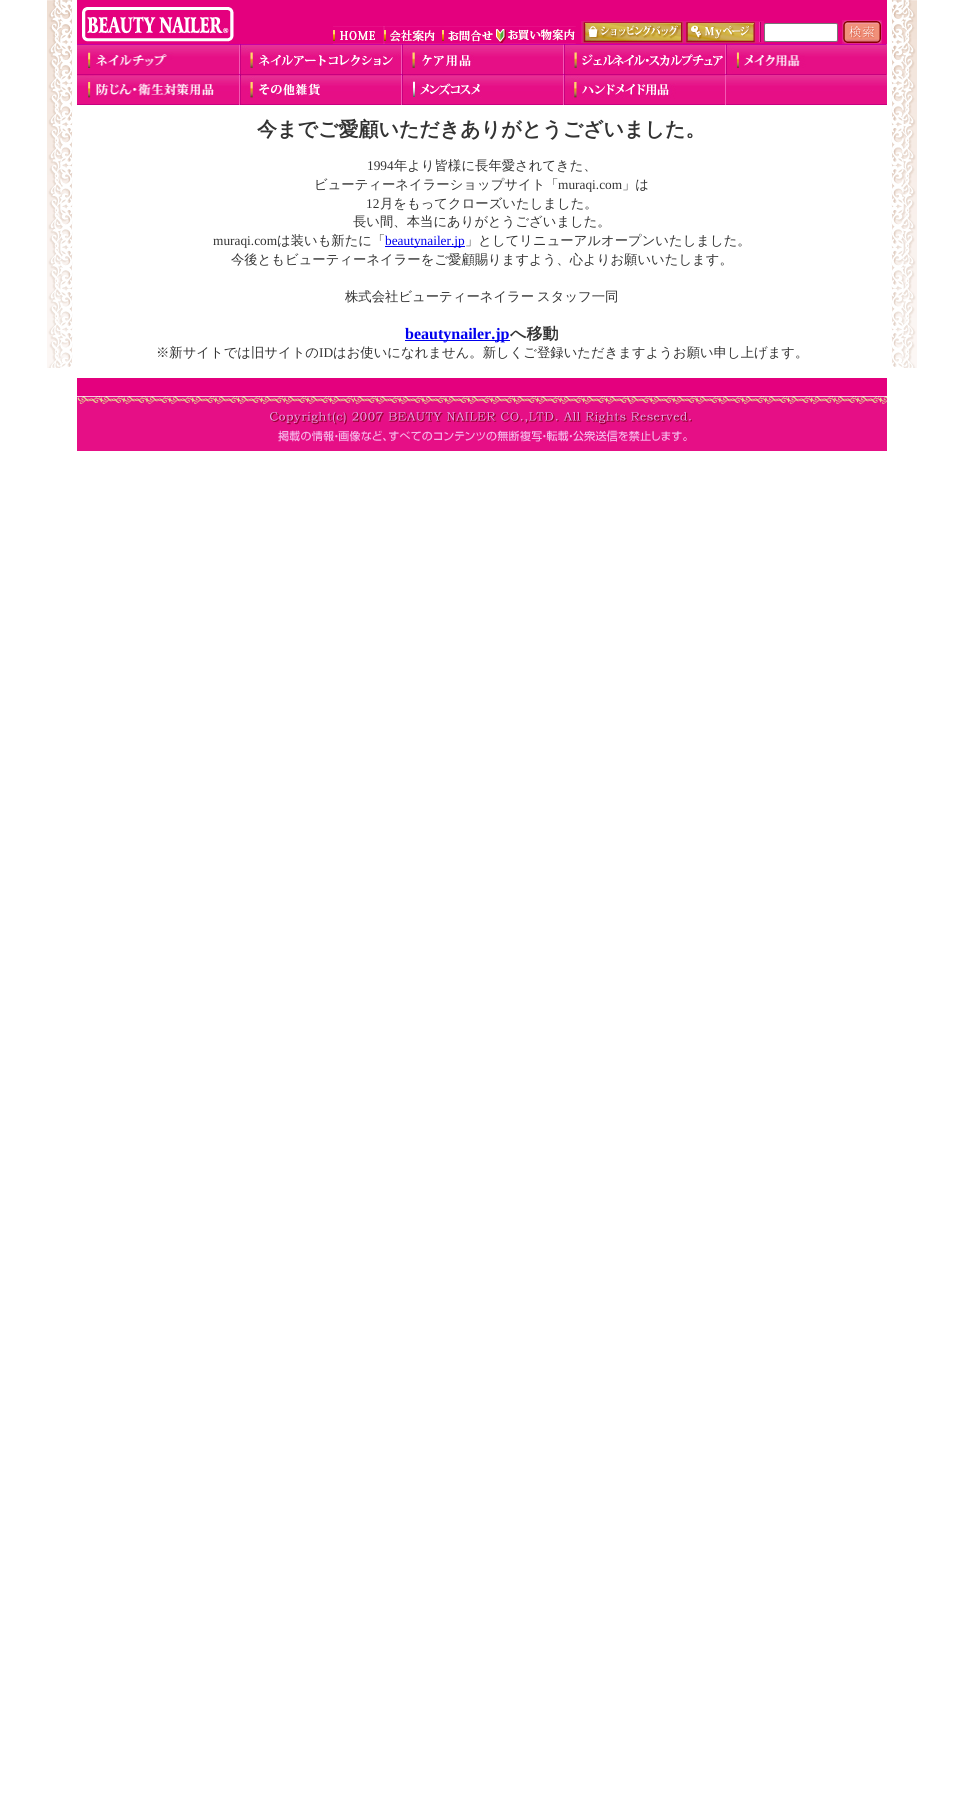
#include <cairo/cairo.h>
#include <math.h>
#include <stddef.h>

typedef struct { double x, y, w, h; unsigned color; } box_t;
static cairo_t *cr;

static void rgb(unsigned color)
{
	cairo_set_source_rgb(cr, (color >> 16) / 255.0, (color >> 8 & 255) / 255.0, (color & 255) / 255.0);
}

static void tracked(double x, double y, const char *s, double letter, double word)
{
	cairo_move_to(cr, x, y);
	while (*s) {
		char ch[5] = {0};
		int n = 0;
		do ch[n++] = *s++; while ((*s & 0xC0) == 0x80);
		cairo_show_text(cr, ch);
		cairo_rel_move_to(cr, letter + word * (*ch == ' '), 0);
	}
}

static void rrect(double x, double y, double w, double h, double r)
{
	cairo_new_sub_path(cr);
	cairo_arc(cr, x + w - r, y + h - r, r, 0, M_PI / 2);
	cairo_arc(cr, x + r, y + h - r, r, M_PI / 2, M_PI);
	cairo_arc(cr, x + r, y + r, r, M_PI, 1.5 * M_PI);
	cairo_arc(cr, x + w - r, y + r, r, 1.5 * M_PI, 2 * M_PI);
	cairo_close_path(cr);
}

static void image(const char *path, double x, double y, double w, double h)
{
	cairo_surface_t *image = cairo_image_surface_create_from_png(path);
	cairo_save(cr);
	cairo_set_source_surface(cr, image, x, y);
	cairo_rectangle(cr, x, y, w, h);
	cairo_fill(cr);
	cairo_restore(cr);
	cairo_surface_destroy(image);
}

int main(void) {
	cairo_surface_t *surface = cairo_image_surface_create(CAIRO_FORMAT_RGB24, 963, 1797);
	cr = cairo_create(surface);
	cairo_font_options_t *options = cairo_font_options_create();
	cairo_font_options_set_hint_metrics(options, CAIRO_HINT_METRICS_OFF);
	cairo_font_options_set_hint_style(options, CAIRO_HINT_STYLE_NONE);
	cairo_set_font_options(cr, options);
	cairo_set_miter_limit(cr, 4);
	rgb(0xffffff);
	cairo_paint(cr);
	image("img/1.png", 47, 0, 26, 368);
	rgb(0xe4007e);
	cairo_rectangle(cr, 77, 0, 810, 396);
	cairo_fill(cr);
	image("img/2.png", 82, 7, 152, 35);
	image("img/3.png", 333, 26, 51, 18);
	image("img/4.png", 384, 26, 58, 18);
	image("img/5.png", 442, 26, 53, 18);
	image("img/6.png", 495, 26, 81, 18);
	image("img/7.png", 581, 21, 103, 22);
	image("img/8.png", 684, 21, 72, 22);
	image("img/9.png", 756, 21, 8, 22);
	rgb(0xffffff);
	rrect(764.5, 23.5, 73, 18, 1.5);
	cairo_fill_preserve(cr);
	rgb(0x767676);
	cairo_set_line_width(cr, 1);
	cairo_stroke(cr);
	image("img/10.png", 842, 20, 40, 24);
	image("img/11.png", 77, 44, 163, 31);
	image("img/12.png", 240, 44, 162, 31);
	image("img/13.png", 402, 44, 162, 31);
	image("img/14.png", 564, 44, 162, 31);
	image("img/15.png", 726, 44, 161, 31);
	image("img/16.png", 726, 75, 161, 30);
	image("img/17.png", 77, 75, 163, 30);
	image("img/18.png", 240, 75, 162, 30);
	image("img/19.png", 402, 75, 162, 30);
	image("img/20.png", 564, 75, 162, 30);
	{
		static const box_t items[] = {
			{77, 105, 810, 273, 0xffffff},
			{385, 246, 80, 1, 0x0000ee},
			{405, 340, 105, 1, 0x0000ee},
		};
		for (size_t i = 0; i < sizeof items / sizeof *items; i++) {
			rgb(items[i].color);
			cairo_rectangle(cr, items[i].x, items[i].y, items[i].w, items[i].h);
			cairo_fill(cr);
		}
	}
	image("img/21.png", 77, 396, 810, 55);
	image("img/22.png", 891, 0, 26, 368);
	cairo_select_font_face(cr, "WenQuanYi Zen Hei", CAIRO_FONT_SLANT_NORMAL, CAIRO_FONT_WEIGHT_BOLD);
	cairo_set_font_size(cr, 20);
	rgb(0x333333);
	cairo_move_to(cr, 257, 136);
	cairo_show_text(cr, "今までご愛顧いただきありがとうございました。");
	cairo_select_font_face(cr, "Liberation Serif", CAIRO_FONT_SLANT_NORMAL, CAIRO_FONT_WEIGHT_NORMAL);
	cairo_set_font_size(cr, 13.35);
	cairo_move_to(cr, 367, 170);
	cairo_show_text(cr, "1994");
	cairo_select_font_face(cr, "WenQuanYi Zen Hei Medium", CAIRO_FONT_SLANT_NORMAL, CAIRO_FONT_WEIGHT_NORMAL);
	cairo_move_to(cr, 394, 170);
	cairo_show_text(cr, "年より皆様に長年愛されてきた、");
	cairo_move_to(cr, 314, 189);
	cairo_show_text(cr, "ビューティーネイラーショップサイト「");
	cairo_select_font_face(cr, "Liberation Serif", CAIRO_FONT_SLANT_NORMAL, CAIRO_FONT_WEIGHT_NORMAL);
	cairo_move_to(cr, 558, 189);
	cairo_show_text(cr, "muraqi.com");
	cairo_select_font_face(cr, "WenQuanYi Zen Hei Medium", CAIRO_FONT_SLANT_NORMAL, CAIRO_FONT_WEIGHT_NORMAL);
	cairo_move_to(cr, 622, 189);
	cairo_show_text(cr, "」は");
	cairo_select_font_face(cr, "Liberation Serif", CAIRO_FONT_SLANT_NORMAL, CAIRO_FONT_WEIGHT_NORMAL);
	cairo_move_to(cr, 366, 208);
	cairo_show_text(cr, "12");
	cairo_select_font_face(cr, "WenQuanYi Zen Hei Medium", CAIRO_FONT_SLANT_NORMAL, CAIRO_FONT_WEIGHT_NORMAL);
	cairo_move_to(cr, 380, 208);
	cairo_show_text(cr, "月をもってクローズいたしました。");
	cairo_move_to(cr, 353, 226);
	cairo_show_text(cr, "長い間、本当にありがとうございました。");
	cairo_select_font_face(cr, "Liberation Serif", CAIRO_FONT_SLANT_NORMAL, CAIRO_FONT_WEIGHT_NORMAL);
	cairo_move_to(cr, 213, 245);
	cairo_show_text(cr, "muraqi.com");
	cairo_select_font_face(cr, "WenQuanYi Zen Hei Medium", CAIRO_FONT_SLANT_NORMAL, CAIRO_FONT_WEIGHT_NORMAL);
	cairo_move_to(cr, 277, 245);
	cairo_show_text(cr, "は装いも新たに「");
	cairo_select_font_face(cr, "Liberation Serif", CAIRO_FONT_SLANT_NORMAL, CAIRO_FONT_WEIGHT_NORMAL);
	rgb(0x0000ee);
	cairo_move_to(cr, 385, 245);
	cairo_show_text(cr, "beautynailer.jp");
	cairo_select_font_face(cr, "WenQuanYi Zen Hei Medium", CAIRO_FONT_SLANT_NORMAL, CAIRO_FONT_WEIGHT_NORMAL);
	rgb(0x333333);
	cairo_move_to(cr, 465, 245);
	cairo_show_text(cr, "」としてリニューアルオープンいたしました。");
	cairo_move_to(cr, 231, 264);
	cairo_show_text(cr, "今後ともビューティーネイラーをご愛顧賜りますよう、心よりお願いいたします。");
	tracked(345, 301, "株式会社ビューティーネイラー スタッフ一同", 0, -1);
	cairo_select_font_face(cr, "Liberation Serif", CAIRO_FONT_SLANT_NORMAL, CAIRO_FONT_WEIGHT_BOLD);
	cairo_set_font_size(cr, 16);
	rgb(0x0000ee);
	cairo_move_to(cr, 405, 339);
	cairo_show_text(cr, "beautynailer.jp");
	cairo_select_font_face(cr, "WenQuanYi Zen Hei", CAIRO_FONT_SLANT_NORMAL, CAIRO_FONT_WEIGHT_BOLD);
	rgb(0x333333);
	cairo_move_to(cr, 510, 339);
	cairo_show_text(cr, "へ移動");
	cairo_select_font_face(cr, "WenQuanYi Zen Hei Medium", CAIRO_FONT_SLANT_NORMAL, CAIRO_FONT_WEIGHT_NORMAL);
	cairo_set_font_size(cr, 13.35);
	cairo_move_to(cr, 156, 357);
	cairo_show_text(cr, "※新サイトでは旧サイトの");
	cairo_select_font_face(cr, "Liberation Serif", CAIRO_FONT_SLANT_NORMAL, CAIRO_FONT_WEIGHT_NORMAL);
	cairo_move_to(cr, 319, 357);
	cairo_show_text(cr, "ID");
	cairo_select_font_face(cr, "WenQuanYi Zen Hei Medium", CAIRO_FONT_SLANT_NORMAL, CAIRO_FONT_WEIGHT_NORMAL);
	cairo_move_to(cr, 333, 357);
	cairo_show_text(cr, "はお使いになれません。新しくご登録いただきますようお願い申し上げます。");
	cairo_surface_write_to_png(surface, "page.png");
	cairo_font_options_destroy(options);
	cairo_destroy(cr);
	cairo_surface_destroy(surface);
	return 0;
}
